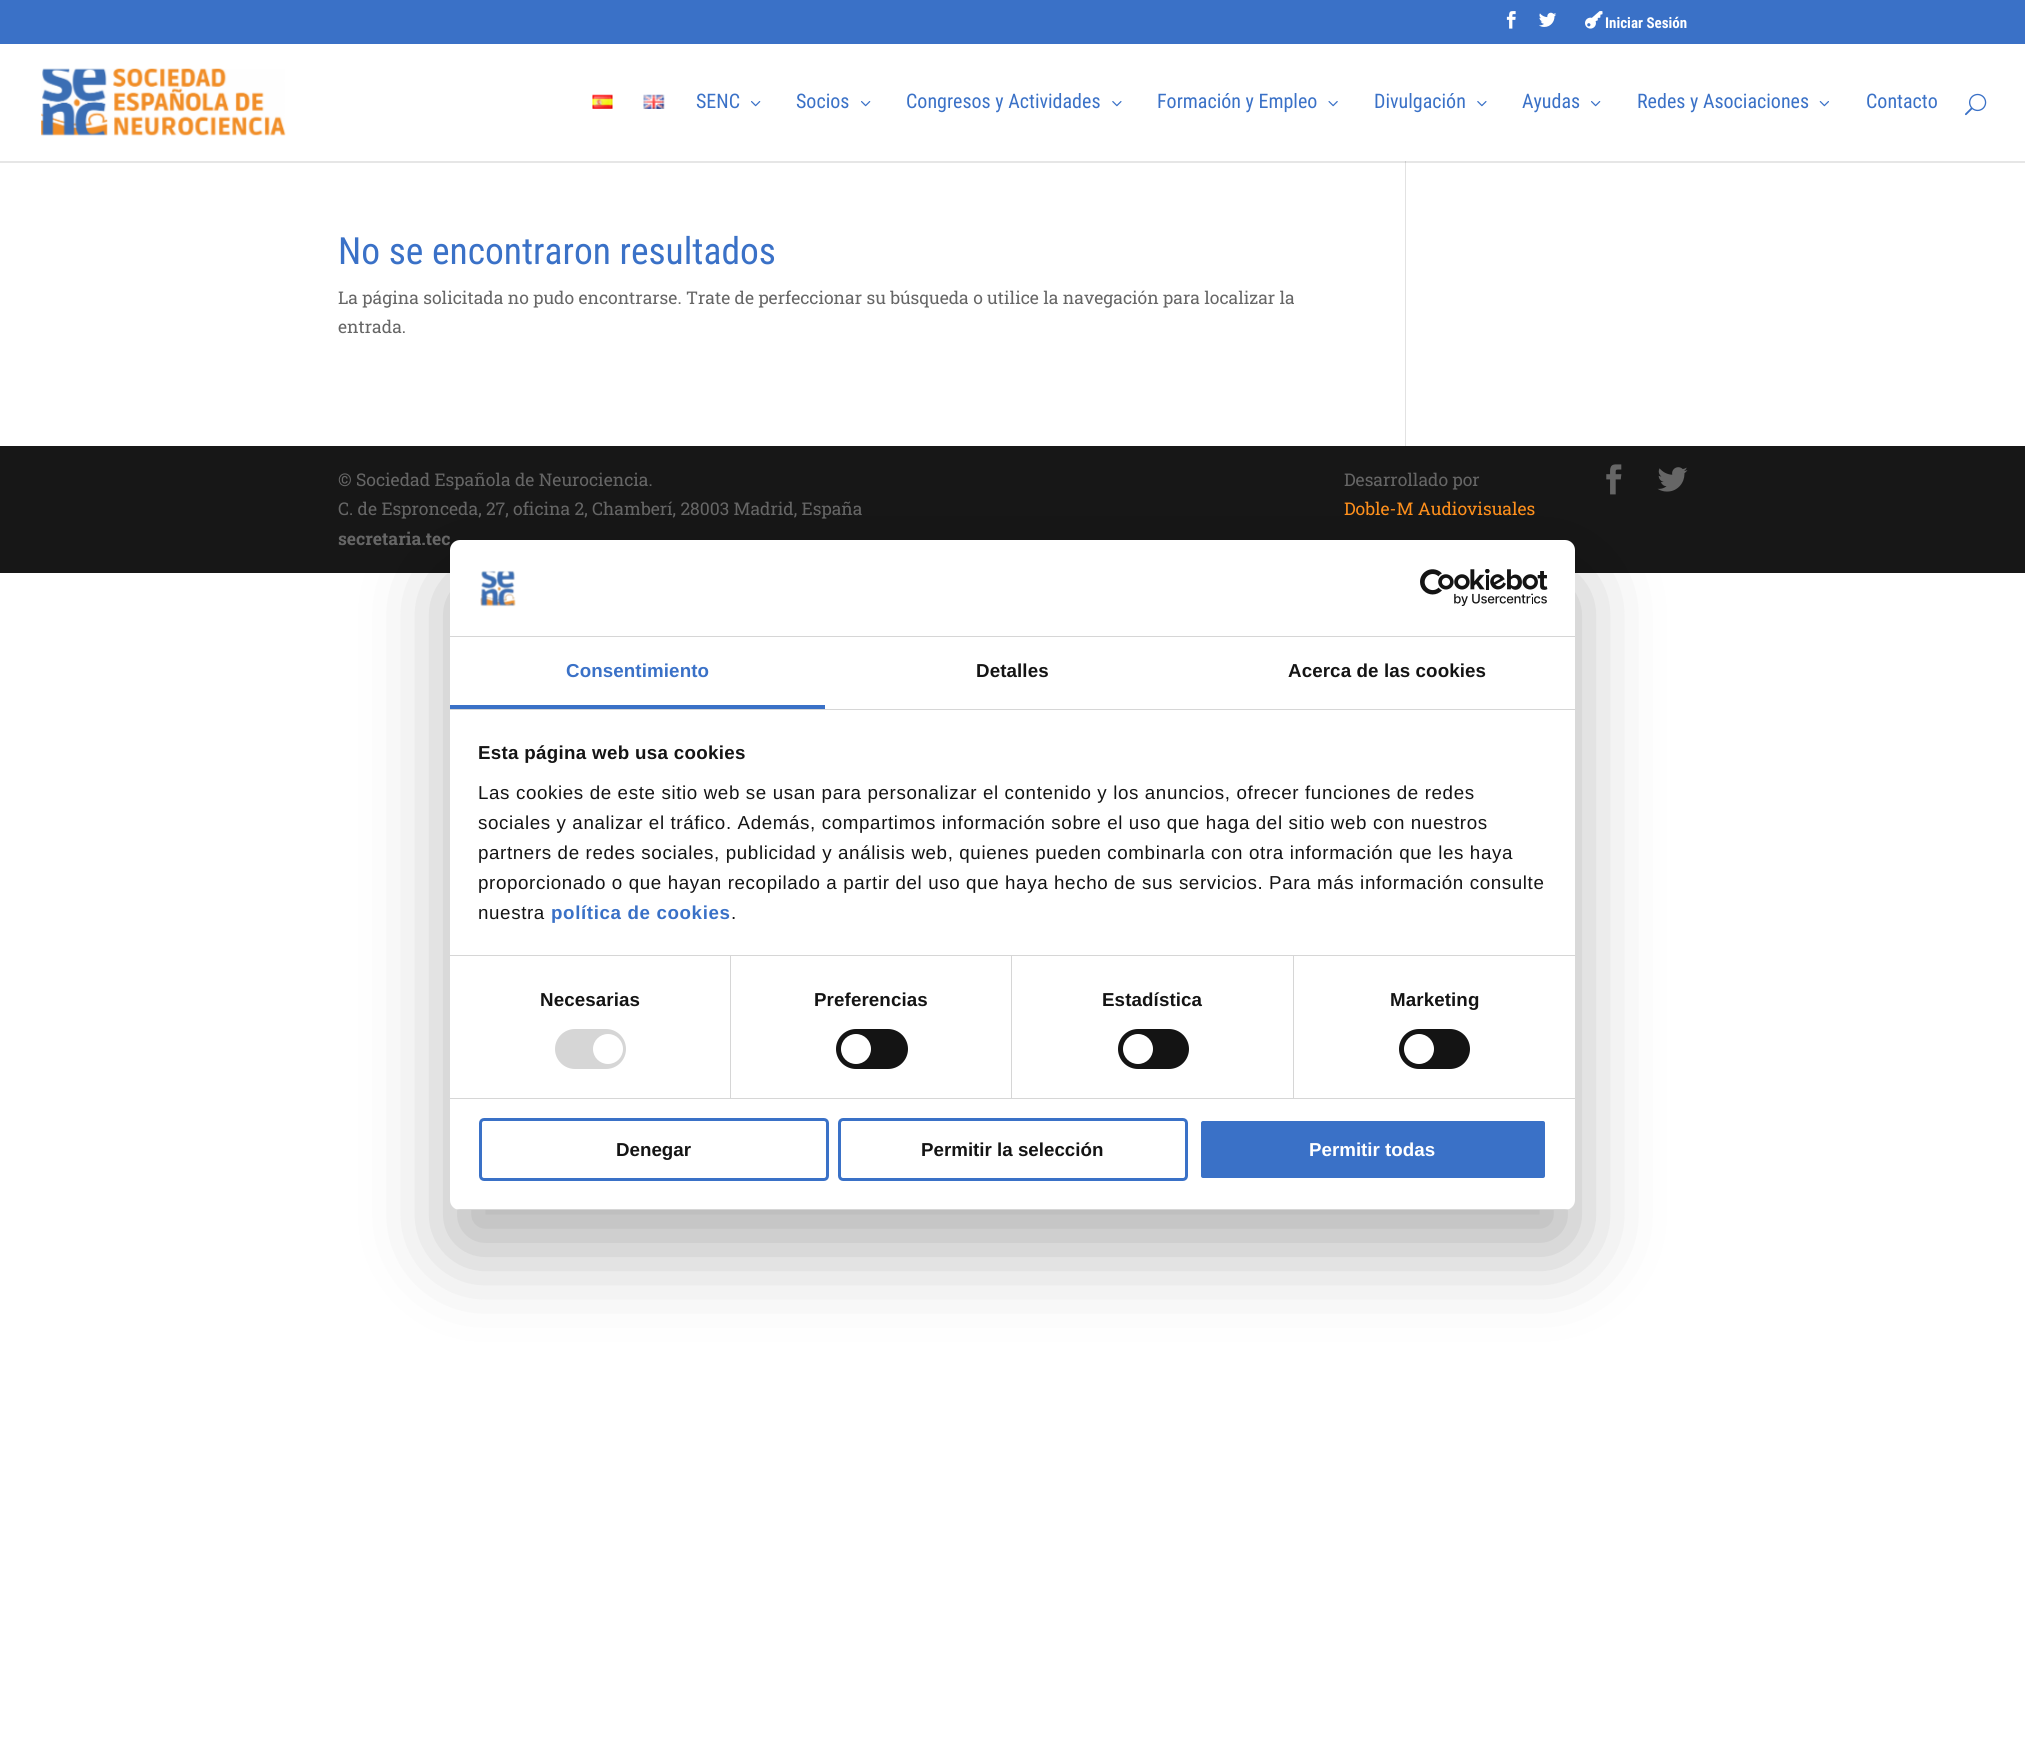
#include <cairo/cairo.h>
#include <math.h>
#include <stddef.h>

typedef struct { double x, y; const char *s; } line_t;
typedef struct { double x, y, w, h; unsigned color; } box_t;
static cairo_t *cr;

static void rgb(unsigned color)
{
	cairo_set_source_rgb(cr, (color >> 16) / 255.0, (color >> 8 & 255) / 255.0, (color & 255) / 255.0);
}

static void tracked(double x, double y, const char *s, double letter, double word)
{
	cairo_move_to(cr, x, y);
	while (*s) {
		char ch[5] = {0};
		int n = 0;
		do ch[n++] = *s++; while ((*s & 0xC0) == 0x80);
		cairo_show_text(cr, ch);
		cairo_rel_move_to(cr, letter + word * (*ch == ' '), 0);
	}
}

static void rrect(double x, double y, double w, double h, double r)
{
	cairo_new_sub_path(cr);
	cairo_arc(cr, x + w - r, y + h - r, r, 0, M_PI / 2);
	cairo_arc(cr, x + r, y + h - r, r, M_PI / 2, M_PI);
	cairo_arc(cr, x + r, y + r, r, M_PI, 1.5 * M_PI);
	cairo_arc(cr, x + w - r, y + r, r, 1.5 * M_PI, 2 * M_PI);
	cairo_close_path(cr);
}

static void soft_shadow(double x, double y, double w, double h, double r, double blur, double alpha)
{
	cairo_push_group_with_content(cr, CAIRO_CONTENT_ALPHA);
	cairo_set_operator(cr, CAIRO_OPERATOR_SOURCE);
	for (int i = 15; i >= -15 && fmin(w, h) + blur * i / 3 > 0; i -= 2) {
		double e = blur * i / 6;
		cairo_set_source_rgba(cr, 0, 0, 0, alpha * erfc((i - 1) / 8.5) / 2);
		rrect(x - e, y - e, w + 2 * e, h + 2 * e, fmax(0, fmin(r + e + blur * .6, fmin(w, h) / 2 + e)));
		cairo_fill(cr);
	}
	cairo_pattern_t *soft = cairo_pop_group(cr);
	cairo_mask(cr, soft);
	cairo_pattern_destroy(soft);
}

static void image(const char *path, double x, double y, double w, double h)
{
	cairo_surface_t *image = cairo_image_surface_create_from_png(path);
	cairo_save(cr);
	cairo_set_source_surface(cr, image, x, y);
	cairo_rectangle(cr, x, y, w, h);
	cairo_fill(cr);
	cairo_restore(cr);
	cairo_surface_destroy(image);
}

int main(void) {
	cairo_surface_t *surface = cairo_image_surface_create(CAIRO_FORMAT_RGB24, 2025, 1749);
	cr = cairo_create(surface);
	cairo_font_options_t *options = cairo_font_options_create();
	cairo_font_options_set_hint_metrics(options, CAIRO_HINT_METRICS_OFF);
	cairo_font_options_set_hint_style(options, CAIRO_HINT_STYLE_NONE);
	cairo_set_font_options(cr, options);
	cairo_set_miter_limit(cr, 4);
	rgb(0xffffff);
	cairo_paint(cr);
	rgb(0xe6e6e6);
	cairo_rectangle(cr, 0, 161, 2025, 2);
	cairo_fill(cr);
	rgb(0x3a71c7);
	cairo_rectangle(cr, 0, 0, 2025, 44);
	cairo_fill(cr);
	image("img/1.png", 1506, 11, 10, 18);
	image("img/2.png", 1539, 12, 18, 15);
	image("img/3.png", 1585, 11, 18, 18);
	rgb(0xe2e2e2);
	cairo_rectangle(cr, 1405, 160, 1, 286);
	cairo_fill(cr);
	rgb(0xffffff);
	cairo_rectangle(cr, 1405, 160, 1, 1);
	cairo_fill(cr);
	image("img/4.png", 41, 68, 245, 68);
	image("img/5.png", 592, 94, 21, 15);
	image("img/6.png", 643, 94, 22, 15);
	image("img/7.png", 751, 101, 10, 6);
	image("img/7.png", 861, 101, 10, 6);
	image("img/8.png", 1112, 101, 10, 6);
	image("img/9.png", 1328, 101, 10, 6);
	image("img/8.png", 1477, 101, 10, 6);
	image("img/7.png", 1591, 101, 10, 6);
	image("img/10.png", 1819, 101, 10, 6);
	image("img/11.png", 1965, 93, 22, 23);
	rgb(0xcbcbcb);
	cairo_rectangle(cr, 1405, 161, 1, 2);
	cairo_fill(cr);
	rgb(0x171717);
	cairo_rectangle(cr, 0, 446, 2025, 127);
	cairo_fill(cr);
	image("img/12.png", 1606, 464, 16, 31);
	image("img/13.png", 1657, 467, 31, 25);
	rgb(0x000000);
	soft_shadow(450, 580, 1125, 670, 10, 42.5, 0.3);
	rgb(0xffffff);
	rrect(450, 540, 1125, 670, 10);
	cairo_fill(cr);
	rgb(0xd6d6d6);
	cairo_rectangle(cr, 450, 636, 1125, 1);
	cairo_fill(cr);
	image("img/14.png", 480, 570, 36, 37);
	image("img/15.png", 1420, 569, 128, 37);
	{
		static const box_t items[] = {
			{450, 709, 1125, 1, 0xd6d6d6},
			{450, 705, 375, 4, 0x3a71c7},
			{450, 955, 1125, 1, 0xd6d6d6},
			{450, 1098, 1125, 1, 0xd6d6d6},
			{730, 956, 1, 142, 0xd6d6d6},
		};
		for (size_t i = 0; i < sizeof items / sizeof *items; i++) {
			rgb(items[i].color);
			cairo_rectangle(cr, items[i].x, items[i].y, items[i].w, items[i].h);
			cairo_fill(cr);
		}
	}
	rrect(555, 1029, 71, 40, 20);
	cairo_fill(cr);
	rgb(0xffffff);
	cairo_arc(cr, 608, 1049, 15, 0, 2 * M_PI);
	cairo_fill(cr);
	rgb(0xd6d6d6);
	cairo_rectangle(cr, 1011, 956, 1, 142);
	cairo_fill(cr);
	rgb(0x141414);
	rrect(836, 1029, 72, 40, 20);
	cairo_fill(cr);
	rgb(0xffffff);
	cairo_arc(cr, 856, 1049, 15, 0, 2 * M_PI);
	cairo_fill(cr);
	rgb(0xd6d6d6);
	cairo_rectangle(cr, 1293, 956, 1, 142);
	cairo_fill(cr);
	rgb(0x141414);
	rrect(1118, 1029, 71, 40, 20);
	cairo_fill(cr);
	rgb(0xffffff);
	cairo_arc(cr, 1138, 1049, 15, 0, 2 * M_PI);
	cairo_fill(cr);
	rgb(0x141414);
	rrect(1399, 1029, 71, 40, 20);
	cairo_fill(cr);
	rgb(0xffffff);
	cairo_arc(cr, 1419, 1049, 15, 0, 2 * M_PI);
	cairo_fill(cr);
	cairo_save(cr);
	rrect(450, 540, 1125, 670, 10);
	cairo_clip(cr);
	rgb(0xd6d6d6);
	cairo_rectangle(cr, 450, 1209, 1125, 1);
	cairo_fill(cr);
	cairo_restore(cr);
	rrect(480.5, 1119.5, 347, 60, 3.5);
	rgb(0x3a71c7);
	cairo_set_line_width(cr, 3);
	cairo_stroke(cr);
	rrect(839.5, 1119.5, 347, 60, 3.5);
	cairo_stroke(cr);
	rrect(1199.5, 1119.5, 347, 60, 3.5);
	cairo_fill_preserve(cr);
	rgb(0xffffff);
	cairo_stroke(cr);
	cairo_select_font_face(cr, "Roboto Condensed", CAIRO_FONT_SLANT_NORMAL, CAIRO_FONT_WEIGHT_BOLD);
	cairo_set_font_size(cr, 15);
	cairo_move_to(cr, 1605, 28);
	cairo_show_text(cr, "Iniciar Sesión");
	cairo_select_font_face(cr, "Roboto Condensed", CAIRO_FONT_SLANT_NORMAL, CAIRO_FONT_WEIGHT_NORMAL);
	cairo_set_font_size(cr, 20);
	rgb(0x3a71c7);
	{
		static const line_t items[] = {
			{696, 108, "SENC"},
			{796, 108, "Socios"},
			{906, 108, "Congresos y Actividades"},
			{1157, 108, "Formación y Empleo"},
			{1374, 108, "Divulgación"},
			{1522, 108, "Ayudas"},
			{1637, 108, "Redes y Asociaciones"},
			{1866, 108, "Contacto"},
		};
		for (size_t i = 0; i < sizeof items / sizeof *items; i++) {
			cairo_move_to(cr, items[i].x, items[i].y);
			cairo_show_text(cr, items[i].s);
		}
	}
	cairo_set_font_size(cr, 37.5);
	cairo_move_to(cr, 338, 264);
	cairo_show_text(cr, "No se encontraron resultados");
	cairo_select_font_face(cr, "Roboto Slab", CAIRO_FONT_SLANT_NORMAL, CAIRO_FONT_WEIGHT_NORMAL);
	cairo_set_font_size(cr, 17.5);
	rgb(0x666666);
	{
		static const line_t items[] = {
			{338, 304, "La página solicitada no pudo encontrarse. Trate de perfeccionar su búsqueda o utilice la navegación para localizar la"},
			{338, 333, "entrada."},
			{338, 486, "© Sociedad Española de Neurociencia."},
			{338, 515, "C. de Espronceda, 27, oficina 2, Chamberí, 28003 Madrid, España"},
		};
		for (size_t i = 0; i < sizeof items / sizeof *items; i++) {
			cairo_move_to(cr, items[i].x, items[i].y);
			cairo_show_text(cr, items[i].s);
		}
	}
	cairo_select_font_face(cr, "Roboto Slab", CAIRO_FONT_SLANT_NORMAL, CAIRO_FONT_WEIGHT_BOLD);
	cairo_move_to(cr, 338, 545);
	cairo_show_text(cr, "secretaria.tec");
	cairo_select_font_face(cr, "Roboto Slab", CAIRO_FONT_SLANT_NORMAL, CAIRO_FONT_WEIGHT_NORMAL);
	cairo_move_to(cr, 1344, 486);
	cairo_show_text(cr, "Desarrollado por");
	rgb(0xff901c);
	cairo_move_to(cr, 1344, 515);
	cairo_show_text(cr, "Doble-M Audiovisuales");
	cairo_select_font_face(cr, "Liberation Sans", CAIRO_FONT_SLANT_NORMAL, CAIRO_FONT_WEIGHT_BOLD);
	cairo_set_font_size(cr, 18.75);
	rgb(0x3a71c7);
	tracked(566, 677, "Consentimiento", 0.1, 0);
	rgb(0x141414);
	tracked(976, 677, "Detalles", 0.1, 0);
	tracked(1288, 677, "Acerca de las cookies", 0.1, 0);
	tracked(478, 759, "Esta página web usa cookies", 0.3, 0);
	cairo_select_font_face(cr, "Liberation Sans", CAIRO_FONT_SLANT_NORMAL, CAIRO_FONT_WEIGHT_NORMAL);
	{
		static const line_t items[] = {
			{478, 799, "Las cookies de este sitio web se usan para personalizar el contenido y los anuncios, ofrecer funciones de redes"},
			{478, 829, "sociales y analizar el tráfico. Además, compartimos información sobre el uso que haga del sitio web con nuestros"},
			{478, 859, "partners de redes sociales, publicidad y análisis web, quienes pueden combinarla con otra información que les haya"},
			{478, 889, "proporcionado o que hayan recopilado a partir del uso que haya hecho de sus servicios. Para más información consulte"},
			{478, 919, "nuestra"},
		};
		for (size_t i = 0; i < sizeof items / sizeof *items; i++) {
			tracked(items[i].x, items[i].y, items[i].s, 0.62, 0);
		}
	}
	cairo_select_font_face(cr, "Liberation Sans", CAIRO_FONT_SLANT_NORMAL, CAIRO_FONT_WEIGHT_BOLD);
	rgb(0x3a71c7);
	tracked(551, 919, "política de cookies", 0.62, 0);
	cairo_select_font_face(cr, "Liberation Sans", CAIRO_FONT_SLANT_NORMAL, CAIRO_FONT_WEIGHT_NORMAL);
	rgb(0x141414);
	tracked(731, 919, ".", 0.62, 0);
	cairo_select_font_face(cr, "Liberation Sans", CAIRO_FONT_SLANT_NORMAL, CAIRO_FONT_WEIGHT_BOLD);
	{
		static const line_t items[] = {
			{540, 1006, "Necesarias"},
			{814, 1006, "Preferencias"},
			{1102, 1006, "Estadística"},
			{1390, 1006, "Marketing"},
		};
		for (size_t i = 0; i < sizeof items / sizeof *items; i++) {
			tracked(items[i].x, items[i].y, items[i].s, 0.1, 0);
		}
	}
	cairo_move_to(cr, 616, 1156);
	cairo_show_text(cr, "Denegar");
	cairo_move_to(cr, 921, 1156);
	cairo_show_text(cr, "Permitir la selección");
	rgb(0xffffff);
	cairo_move_to(cr, 1309, 1156);
	cairo_show_text(cr, "Permitir todas");
	cairo_surface_write_to_png(surface, "page.png");
	cairo_font_options_destroy(options);
	cairo_destroy(cr);
	cairo_surface_destroy(surface);
	return 0;
}
